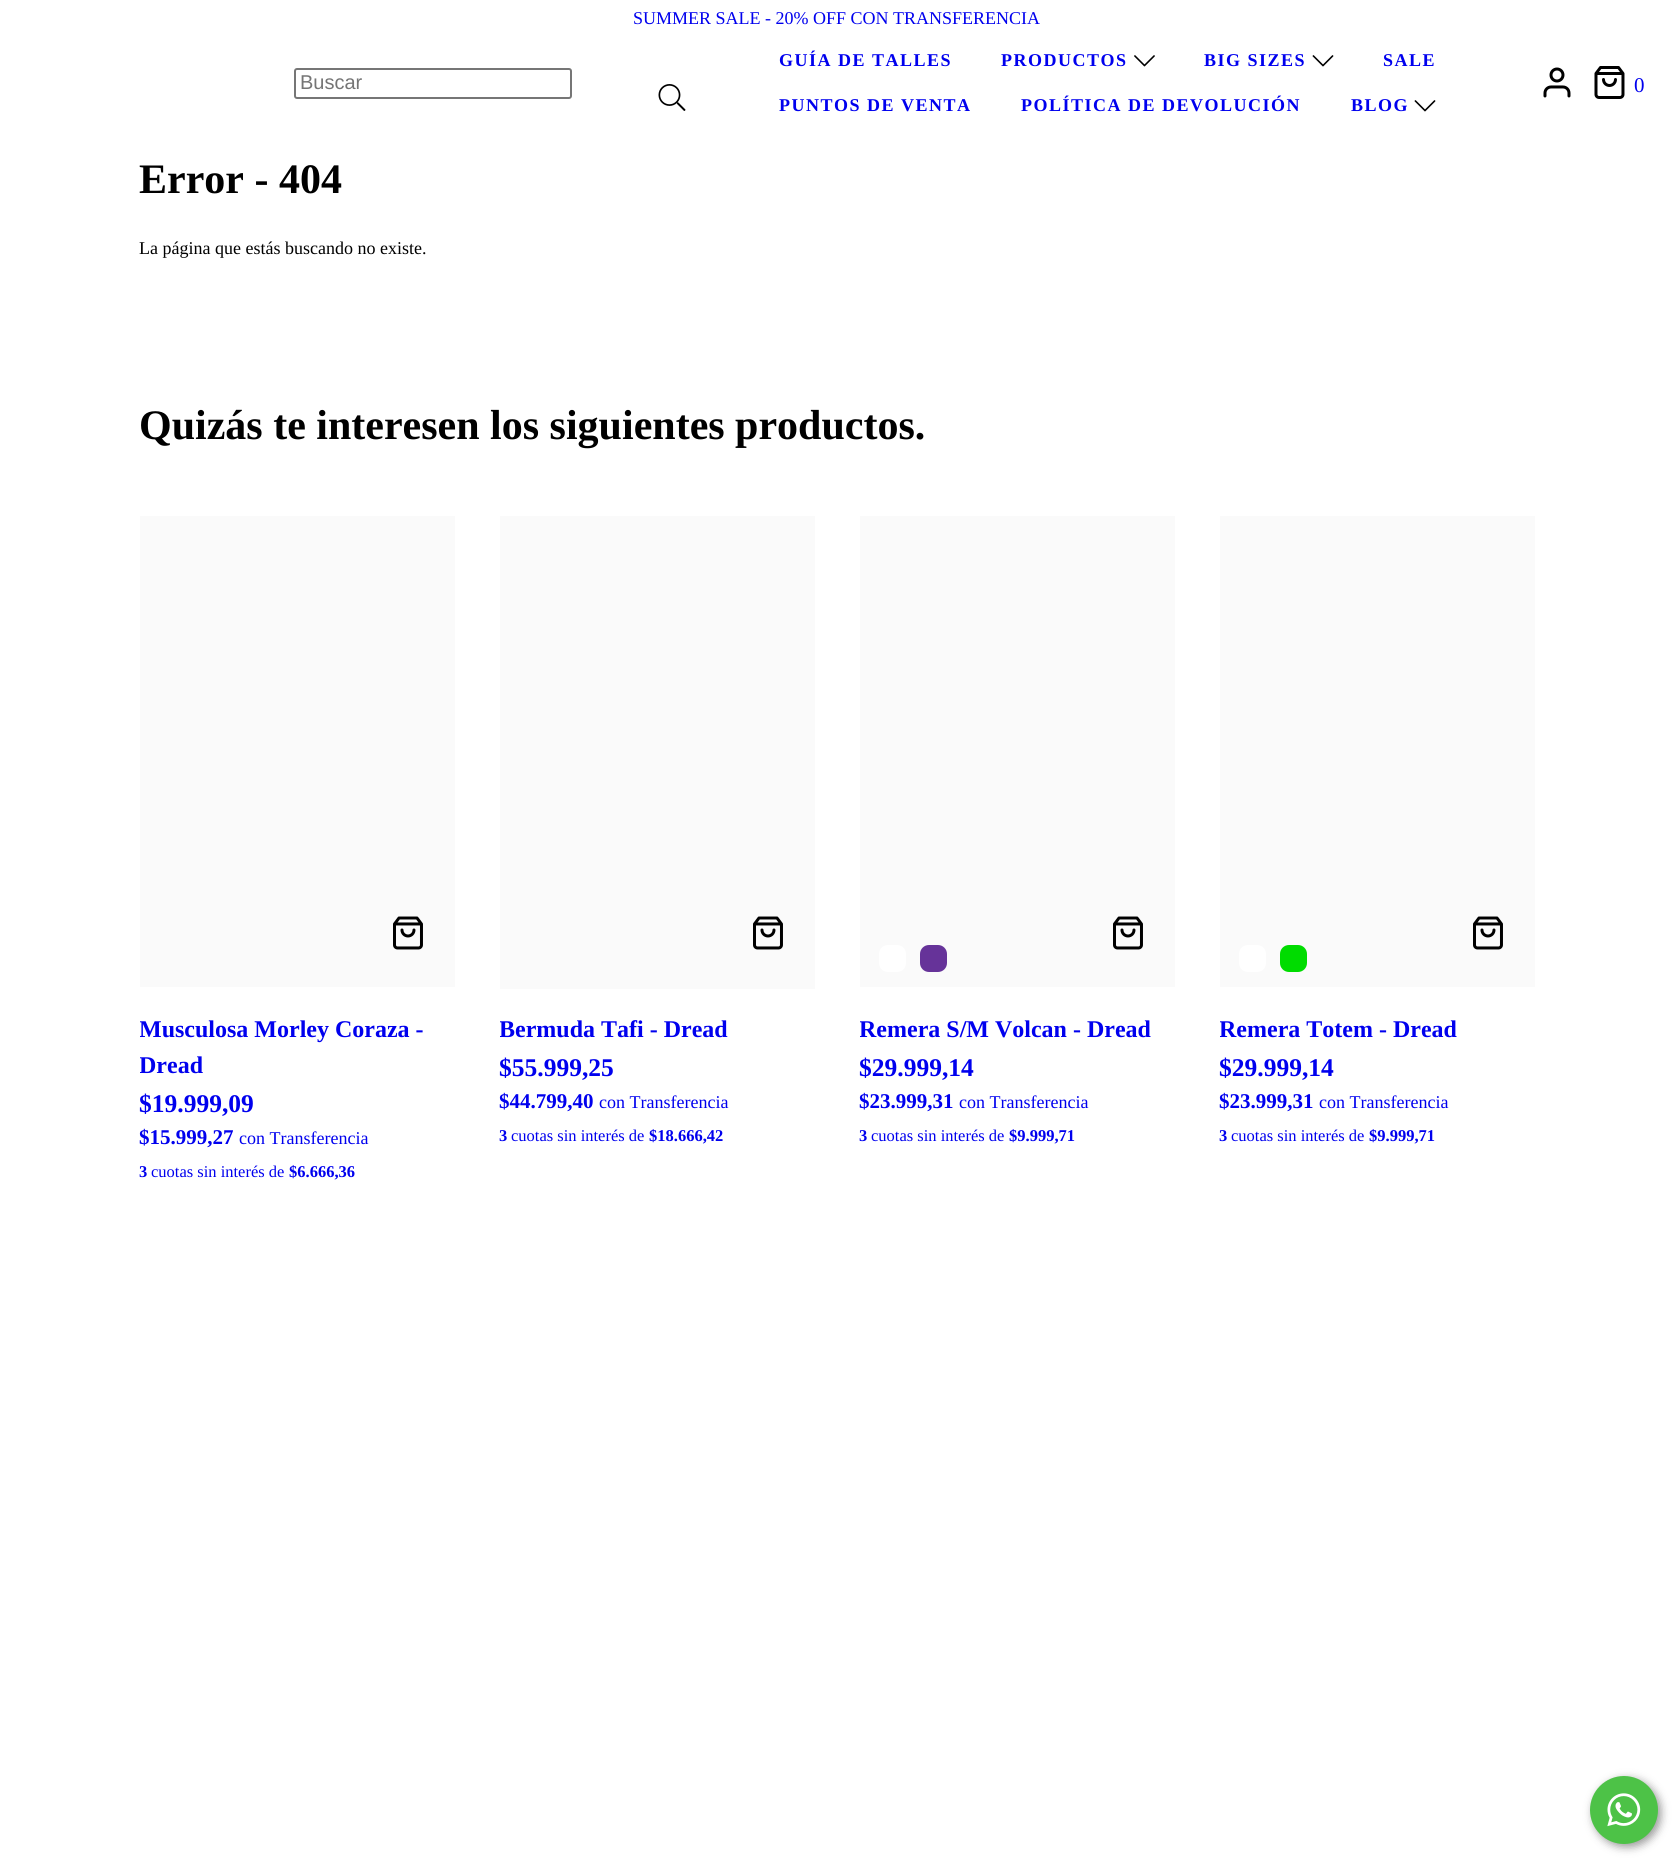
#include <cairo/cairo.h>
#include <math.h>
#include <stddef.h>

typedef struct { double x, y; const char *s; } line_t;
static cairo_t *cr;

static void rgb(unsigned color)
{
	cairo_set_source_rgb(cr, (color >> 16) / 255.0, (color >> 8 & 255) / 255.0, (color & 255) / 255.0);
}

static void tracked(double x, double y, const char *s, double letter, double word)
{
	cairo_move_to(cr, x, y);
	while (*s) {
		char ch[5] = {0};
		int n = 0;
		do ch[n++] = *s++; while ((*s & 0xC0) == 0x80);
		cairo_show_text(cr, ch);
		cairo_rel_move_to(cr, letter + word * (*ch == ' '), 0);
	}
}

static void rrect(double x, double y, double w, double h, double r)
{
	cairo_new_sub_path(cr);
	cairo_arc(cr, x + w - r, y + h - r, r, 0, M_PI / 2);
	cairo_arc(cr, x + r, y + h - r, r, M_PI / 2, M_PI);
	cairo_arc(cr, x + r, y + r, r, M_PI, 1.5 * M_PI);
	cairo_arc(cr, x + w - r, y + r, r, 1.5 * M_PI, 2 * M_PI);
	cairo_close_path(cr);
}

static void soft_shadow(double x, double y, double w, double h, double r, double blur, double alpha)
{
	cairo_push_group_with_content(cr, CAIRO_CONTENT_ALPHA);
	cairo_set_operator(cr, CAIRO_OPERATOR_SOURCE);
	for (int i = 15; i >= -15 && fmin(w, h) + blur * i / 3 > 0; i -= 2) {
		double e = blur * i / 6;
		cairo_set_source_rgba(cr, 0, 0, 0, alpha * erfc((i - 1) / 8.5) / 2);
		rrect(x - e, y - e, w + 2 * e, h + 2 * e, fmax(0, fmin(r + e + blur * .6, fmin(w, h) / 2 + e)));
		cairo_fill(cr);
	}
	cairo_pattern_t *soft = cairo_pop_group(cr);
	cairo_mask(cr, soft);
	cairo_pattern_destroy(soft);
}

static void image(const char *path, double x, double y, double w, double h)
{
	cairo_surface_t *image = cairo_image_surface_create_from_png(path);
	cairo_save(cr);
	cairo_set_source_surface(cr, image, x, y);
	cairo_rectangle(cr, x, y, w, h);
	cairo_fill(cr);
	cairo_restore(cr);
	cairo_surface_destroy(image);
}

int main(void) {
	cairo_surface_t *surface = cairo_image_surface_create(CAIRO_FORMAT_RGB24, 1672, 1858);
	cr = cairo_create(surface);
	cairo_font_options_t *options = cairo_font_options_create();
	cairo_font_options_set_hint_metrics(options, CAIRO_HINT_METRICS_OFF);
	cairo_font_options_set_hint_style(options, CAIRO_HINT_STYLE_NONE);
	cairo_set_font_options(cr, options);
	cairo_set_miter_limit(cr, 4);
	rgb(0xffffff);
	cairo_paint(cr);
	rrect(295, 69, 276, 29, 2);
	rgb(0x767676);
	cairo_stroke(cr);
	image("img/1.png", 658, 84, 28, 27);
	image("img/2.png", 1134, 55, 21, 12);
	image("img/3.png", 1312, 55, 22, 12);
	image("img/3.png", 1414, 100, 22, 12);
	image("img/4.png", 1543, 67, 28, 31);
	image("img/5.png", 1594, 66, 31, 33);
	rgb(0xfafafa);
	cairo_rectangle(cr, 140, 516, 315, 471);
	cairo_fill(cr);
	image("img/6.png", 393, 916, 30, 34);
	cairo_rectangle(cr, 500, 516, 315, 473);
	cairo_fill(cr);
	image("img/6.png", 753, 916, 30, 34);
	cairo_rectangle(cr, 860, 516, 315, 471);
	cairo_fill(cr);
	image("img/6.png", 1113, 916, 30, 34);
	rgb(0xffffff);
	rrect(879, 945, 27, 27, 9);
	cairo_fill(cr);
	rgb(0x663399);
	rrect(920, 945, 27, 27, 9);
	cairo_fill(cr);
	rgb(0xfafafa);
	cairo_rectangle(cr, 1220, 516, 315, 471);
	cairo_fill(cr);
	image("img/6.png", 1473, 916, 30, 34);
	rgb(0xffffff);
	rrect(1239, 945, 27, 27, 9);
	cairo_fill(cr);
	rgb(0x00dc00);
	rrect(1280, 945, 27, 27, 9);
	cairo_fill(cr);
	rgb(0x000000);
	soft_shadow(1593, 1779, 68, 68, 34, 4.5, 0.4);
	rgb(0x4dc247);
	cairo_arc(cr, 1624, 1810, 34, 0, 2 * M_PI);
	cairo_fill(cr);
	image("img/7.png", 1607, 1793, 34, 34);
	cairo_select_font_face(cr, "Liberation Serif", CAIRO_FONT_SLANT_NORMAL, CAIRO_FONT_WEIGHT_NORMAL);
	cairo_set_font_size(cr, 18);
	rgb(0x0000ee);
	cairo_move_to(cr, 633, 24);
	cairo_show_text(cr, "SUMMER SALE - 20% OFF CON TRANSFERENCIA");
	cairo_select_font_face(cr, "Liberation Sans", CAIRO_FONT_SLANT_NORMAL, CAIRO_FONT_WEIGHT_NORMAL);
	cairo_set_font_size(cr, 20);
	rgb(0x757575);
	cairo_move_to(cr, 300, 89);
	cairo_show_text(cr, "Buscar");
	cairo_select_font_face(cr, "Liberation Serif", CAIRO_FONT_SLANT_NORMAL, CAIRO_FONT_WEIGHT_BOLD);
	cairo_set_font_size(cr, 18);
	rgb(0x0000ee);
	{
		static const line_t items[] = {
			{779, 66, "GUÍA DE TALLES"},
			{1001, 66, "PRODUCTOS"},
			{1204, 66, "BIG SIZES"},
			{1383, 66, "SALE"},
			{779, 111, "PUNTOS DE VENTA"},
			{1021, 111, "POLÍTICA DE DEVOLUCIÓN"},
			{1351, 111, "BLOG"},
		};
		for (size_t i = 0; i < sizeof items / sizeof *items; i++) {
			tracked(items[i].x, items[i].y, items[i].s, 1.5, 0);
		}
	}
	cairo_select_font_face(cr, "Liberation Serif", CAIRO_FONT_SLANT_NORMAL, CAIRO_FONT_WEIGHT_NORMAL);
	cairo_set_font_size(cr, 21);
	cairo_move_to(cr, 1634, 92);
	cairo_show_text(cr, "0");
	cairo_select_font_face(cr, "Liberation Serif", CAIRO_FONT_SLANT_NORMAL, CAIRO_FONT_WEIGHT_BOLD);
	cairo_set_font_size(cr, 42);
	rgb(0x000000);
	cairo_move_to(cr, 139, 193);
	cairo_show_text(cr, "Error - 404");
	cairo_select_font_face(cr, "Liberation Serif", CAIRO_FONT_SLANT_NORMAL, CAIRO_FONT_WEIGHT_NORMAL);
	cairo_set_font_size(cr, 18);
	cairo_move_to(cr, 139, 254);
	cairo_show_text(cr, "La página que estás buscando no existe.");
	cairo_select_font_face(cr, "Liberation Serif", CAIRO_FONT_SLANT_NORMAL, CAIRO_FONT_WEIGHT_BOLD);
	cairo_set_font_size(cr, 42);
	cairo_move_to(cr, 139, 439);
	cairo_show_text(cr, "Quizás te interesen los siguientes productos.");
	cairo_save(cr);
	cairo_rectangle(cr, 140, 1011, 315, 72);
	cairo_clip(cr);
	cairo_set_font_size(cr, 24);
	rgb(0x0000ee);
	cairo_move_to(cr, 139, 1037);
	cairo_show_text(cr, "Musculosa Morley Coraza -");
	cairo_move_to(cr, 139, 1073);
	cairo_show_text(cr, "Dread");
	cairo_restore(cr);
	cairo_set_font_size(cr, 25.5);
	rgb(0x0000ee);
	cairo_move_to(cr, 139, 1112);
	cairo_show_text(cr, "$19.999,09");
	cairo_set_font_size(cr, 21);
	cairo_move_to(cr, 139, 1144);
	cairo_show_text(cr, "$15.999,27");
	cairo_select_font_face(cr, "Liberation Serif", CAIRO_FONT_SLANT_NORMAL, CAIRO_FONT_WEIGHT_NORMAL);
	cairo_set_font_size(cr, 18);
	cairo_move_to(cr, 239, 1144);
	cairo_show_text(cr, "con Transferencia");
	cairo_select_font_face(cr, "Liberation Serif", CAIRO_FONT_SLANT_NORMAL, CAIRO_FONT_WEIGHT_BOLD);
	cairo_set_font_size(cr, 16.5);
	cairo_move_to(cr, 139, 1177);
	cairo_show_text(cr, "3");
	cairo_select_font_face(cr, "Liberation Serif", CAIRO_FONT_SLANT_NORMAL, CAIRO_FONT_WEIGHT_NORMAL);
	cairo_move_to(cr, 151, 1177);
	cairo_show_text(cr, "cuotas sin interés de");
	cairo_select_font_face(cr, "Liberation Serif", CAIRO_FONT_SLANT_NORMAL, CAIRO_FONT_WEIGHT_BOLD);
	cairo_move_to(cr, 289, 1177);
	cairo_show_text(cr, "$6.666,36");
	cairo_save(cr);
	cairo_rectangle(cr, 500, 1013, 315, 36);
	cairo_clip(cr);
	cairo_set_font_size(cr, 24);
	cairo_move_to(cr, 499, 1037);
	cairo_show_text(cr, "Bermuda Tafi - Dread");
	cairo_restore(cr);
	cairo_set_font_size(cr, 25.5);
	cairo_move_to(cr, 499, 1076);
	cairo_show_text(cr, "$55.999,25");
	cairo_set_font_size(cr, 21);
	cairo_move_to(cr, 499, 1108);
	cairo_show_text(cr, "$44.799,40");
	cairo_select_font_face(cr, "Liberation Serif", CAIRO_FONT_SLANT_NORMAL, CAIRO_FONT_WEIGHT_NORMAL);
	cairo_set_font_size(cr, 18);
	cairo_move_to(cr, 599, 1108);
	cairo_show_text(cr, "con Transferencia");
	cairo_select_font_face(cr, "Liberation Serif", CAIRO_FONT_SLANT_NORMAL, CAIRO_FONT_WEIGHT_BOLD);
	cairo_set_font_size(cr, 16.5);
	cairo_move_to(cr, 499, 1141);
	cairo_show_text(cr, "3");
	cairo_select_font_face(cr, "Liberation Serif", CAIRO_FONT_SLANT_NORMAL, CAIRO_FONT_WEIGHT_NORMAL);
	cairo_move_to(cr, 511, 1141);
	cairo_show_text(cr, "cuotas sin interés de");
	cairo_select_font_face(cr, "Liberation Serif", CAIRO_FONT_SLANT_NORMAL, CAIRO_FONT_WEIGHT_BOLD);
	cairo_move_to(cr, 649, 1141);
	cairo_show_text(cr, "$18.666,42");
	cairo_save(cr);
	cairo_rectangle(cr, 860, 1011, 315, 36);
	cairo_clip(cr);
	cairo_set_font_size(cr, 24);
	cairo_move_to(cr, 859, 1037);
	cairo_show_text(cr, "Remera S/M Volcan - Dread");
	cairo_restore(cr);
	cairo_set_font_size(cr, 25.5);
	cairo_move_to(cr, 859, 1076);
	cairo_show_text(cr, "$29.999,14");
	cairo_set_font_size(cr, 21);
	cairo_move_to(cr, 859, 1108);
	cairo_show_text(cr, "$23.999,31");
	cairo_select_font_face(cr, "Liberation Serif", CAIRO_FONT_SLANT_NORMAL, CAIRO_FONT_WEIGHT_NORMAL);
	cairo_set_font_size(cr, 18);
	cairo_move_to(cr, 959, 1108);
	cairo_show_text(cr, "con Transferencia");
	cairo_select_font_face(cr, "Liberation Serif", CAIRO_FONT_SLANT_NORMAL, CAIRO_FONT_WEIGHT_BOLD);
	cairo_set_font_size(cr, 16.5);
	cairo_move_to(cr, 859, 1141);
	cairo_show_text(cr, "3");
	cairo_select_font_face(cr, "Liberation Serif", CAIRO_FONT_SLANT_NORMAL, CAIRO_FONT_WEIGHT_NORMAL);
	cairo_move_to(cr, 871, 1141);
	cairo_show_text(cr, "cuotas sin interés de");
	cairo_select_font_face(cr, "Liberation Serif", CAIRO_FONT_SLANT_NORMAL, CAIRO_FONT_WEIGHT_BOLD);
	cairo_move_to(cr, 1009, 1141);
	cairo_show_text(cr, "$9.999,71");
	cairo_save(cr);
	cairo_rectangle(cr, 1220, 1011, 315, 36);
	cairo_clip(cr);
	cairo_set_font_size(cr, 24);
	cairo_move_to(cr, 1219, 1037);
	cairo_show_text(cr, "Remera Totem - Dread");
	cairo_restore(cr);
	cairo_set_font_size(cr, 25.5);
	cairo_move_to(cr, 1219, 1076);
	cairo_show_text(cr, "$29.999,14");
	cairo_set_font_size(cr, 21);
	cairo_move_to(cr, 1219, 1108);
	cairo_show_text(cr, "$23.999,31");
	cairo_select_font_face(cr, "Liberation Serif", CAIRO_FONT_SLANT_NORMAL, CAIRO_FONT_WEIGHT_NORMAL);
	cairo_set_font_size(cr, 18);
	cairo_move_to(cr, 1319, 1108);
	cairo_show_text(cr, "con Transferencia");
	cairo_select_font_face(cr, "Liberation Serif", CAIRO_FONT_SLANT_NORMAL, CAIRO_FONT_WEIGHT_BOLD);
	cairo_set_font_size(cr, 16.5);
	cairo_move_to(cr, 1219, 1141);
	cairo_show_text(cr, "3");
	cairo_select_font_face(cr, "Liberation Serif", CAIRO_FONT_SLANT_NORMAL, CAIRO_FONT_WEIGHT_NORMAL);
	cairo_move_to(cr, 1231, 1141);
	cairo_show_text(cr, "cuotas sin interés de");
	cairo_select_font_face(cr, "Liberation Serif", CAIRO_FONT_SLANT_NORMAL, CAIRO_FONT_WEIGHT_BOLD);
	cairo_move_to(cr, 1369, 1141);
	cairo_show_text(cr, "$9.999,71");
	cairo_surface_write_to_png(surface, "page.png");
	cairo_font_options_destroy(options);
	cairo_destroy(cr);
	cairo_surface_destroy(surface);
	return 0;
}
